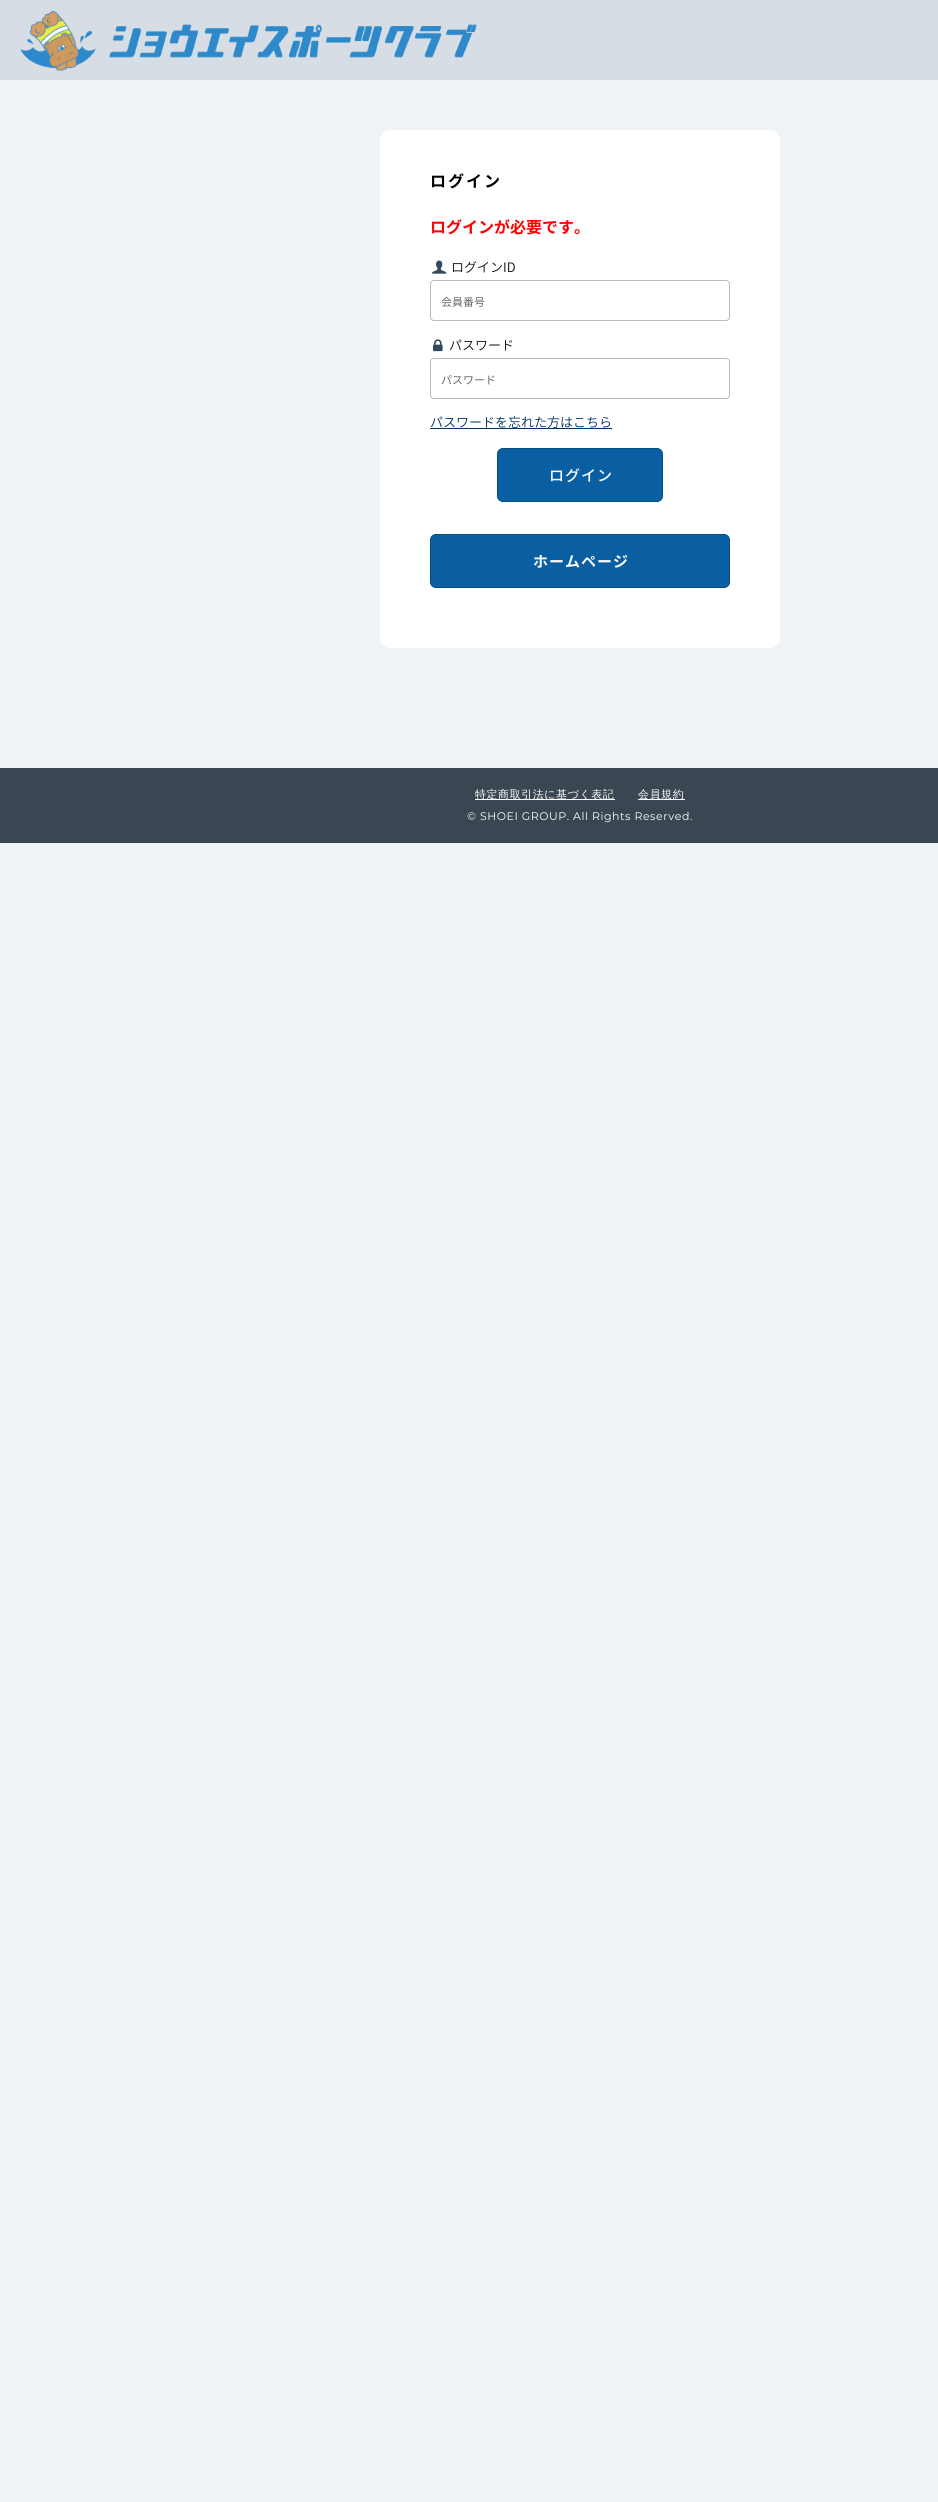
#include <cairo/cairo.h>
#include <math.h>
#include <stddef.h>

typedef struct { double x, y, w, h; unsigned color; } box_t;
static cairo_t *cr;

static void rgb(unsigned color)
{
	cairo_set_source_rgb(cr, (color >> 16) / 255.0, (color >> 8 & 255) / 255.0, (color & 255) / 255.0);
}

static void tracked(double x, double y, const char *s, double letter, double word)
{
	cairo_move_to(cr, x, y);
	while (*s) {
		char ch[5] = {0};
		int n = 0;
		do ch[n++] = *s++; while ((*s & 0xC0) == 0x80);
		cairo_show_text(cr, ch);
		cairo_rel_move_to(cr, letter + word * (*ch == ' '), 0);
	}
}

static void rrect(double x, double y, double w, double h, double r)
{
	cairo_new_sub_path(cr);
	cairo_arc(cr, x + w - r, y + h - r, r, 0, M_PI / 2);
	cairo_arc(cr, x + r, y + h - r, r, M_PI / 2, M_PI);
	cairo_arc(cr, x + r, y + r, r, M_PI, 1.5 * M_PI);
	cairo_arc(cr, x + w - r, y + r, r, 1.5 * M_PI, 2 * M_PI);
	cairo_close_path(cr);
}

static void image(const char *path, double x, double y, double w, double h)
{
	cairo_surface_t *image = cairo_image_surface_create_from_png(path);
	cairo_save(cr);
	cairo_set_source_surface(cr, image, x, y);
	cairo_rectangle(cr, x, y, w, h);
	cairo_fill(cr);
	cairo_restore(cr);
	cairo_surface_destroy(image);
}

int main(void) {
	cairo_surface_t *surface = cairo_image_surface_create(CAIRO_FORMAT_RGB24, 938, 2502);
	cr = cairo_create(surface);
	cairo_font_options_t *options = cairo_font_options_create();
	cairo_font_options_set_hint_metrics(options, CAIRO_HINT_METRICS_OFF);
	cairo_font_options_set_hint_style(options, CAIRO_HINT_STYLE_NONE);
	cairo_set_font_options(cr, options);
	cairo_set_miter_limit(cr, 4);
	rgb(0xf0f3f6);
	cairo_paint(cr);
	rgb(0xd7dde4);
	cairo_rectangle(cr, 0, 0, 938, 80);
	cairo_fill(cr);
	image("img/1.png", 20, 11, 457, 60);
	rgb(0xffffff);
	rrect(380, 130, 400, 518, 10);
	cairo_fill(cr);
	image("img/2.png", 432, 260, 15, 14);
	rrect(430.5, 280.5, 299, 40, 3.5);
	rgb(0xbbbbbb);
	cairo_set_line_width(cr, 1);
	cairo_stroke(cr);
	image("img/3.png", 433, 339, 10, 13);
	rrect(430.5, 358.5, 299, 40, 3.5);
	cairo_stroke(cr);
	rgb(0x003366);
	cairo_rectangle(cr, 430, 428, 182, 1);
	cairo_fill(cr);
	rgb(0x0a5fa2);
	rrect(497.5, 448.5, 165, 53, 5.5);
	cairo_fill_preserve(cr);
	rgb(0x00527d);
	cairo_stroke(cr);
	rgb(0x0a5fa2);
	rrect(430.5, 534.5, 299, 53, 5.5);
	cairo_fill_preserve(cr);
	rgb(0x00527d);
	cairo_stroke(cr);
	{
		static const box_t items[] = {
			{0, 768, 938, 75, 0x3a4651},
			{475, 799, 140, 1, 0xffffff},
			{638, 799, 47, 1, 0xffffff},
		};
		for (size_t i = 0; i < sizeof items / sizeof *items; i++) {
			rgb(items[i].color);
			cairo_rectangle(cr, items[i].x, items[i].y, items[i].w, items[i].h);
			cairo_fill(cr);
		}
	}
	cairo_select_font_face(cr, "Noto Sans JP", CAIRO_FONT_SLANT_NORMAL, CAIRO_FONT_WEIGHT_BOLD);
	cairo_set_font_size(cr, 16);
	rgb(0x000000);
	tracked(430, 187, "ログイン", 2, 0);
	rgb(0xff0000);
	cairo_move_to(cr, 430, 233);
	cairo_show_text(cr, "ログインが必要です。");
	cairo_select_font_face(cr, "Noto Sans JP Light", CAIRO_FONT_SLANT_NORMAL, CAIRO_FONT_WEIGHT_NORMAL);
	cairo_set_font_size(cr, 13);
	rgb(0x111111);
	cairo_move_to(cr, 451, 272);
	cairo_show_text(cr, "ログインID");
	cairo_select_font_face(cr, "Noto Sans JP", CAIRO_FONT_SLANT_NORMAL, CAIRO_FONT_WEIGHT_NORMAL);
	cairo_set_font_size(cr, 11);
	rgb(0x666666);
	cairo_move_to(cr, 441, 306);
	cairo_show_text(cr, "会員番号");
	cairo_select_font_face(cr, "Noto Sans JP Light", CAIRO_FONT_SLANT_NORMAL, CAIRO_FONT_WEIGHT_NORMAL);
	cairo_set_font_size(cr, 13);
	rgb(0x111111);
	cairo_move_to(cr, 449, 350);
	cairo_show_text(cr, "パスワード");
	cairo_select_font_face(cr, "Noto Sans JP", CAIRO_FONT_SLANT_NORMAL, CAIRO_FONT_WEIGHT_NORMAL);
	cairo_set_font_size(cr, 11);
	rgb(0x666666);
	cairo_move_to(cr, 441, 384);
	cairo_show_text(cr, "パスワード");
	cairo_select_font_face(cr, "Noto Sans JP Light", CAIRO_FONT_SLANT_NORMAL, CAIRO_FONT_WEIGHT_NORMAL);
	cairo_set_font_size(cr, 13);
	rgb(0x003366);
	cairo_move_to(cr, 430, 427);
	cairo_show_text(cr, "パスワードを忘れた方はこちら");
	cairo_select_font_face(cr, "Noto Sans JP Medium", CAIRO_FONT_SLANT_NORMAL, CAIRO_FONT_WEIGHT_NORMAL);
	cairo_set_font_size(cr, 15);
	rgb(0xffffff);
	tracked(549, 481, "ログイン", 1, 0);
	cairo_select_font_face(cr, "Noto Sans JP", CAIRO_FONT_SLANT_NORMAL, CAIRO_FONT_WEIGHT_BOLD);
	tracked(533, 567, "ホームページ", 1, 0);
	cairo_select_font_face(cr, "WenQuanYi Zen Hei Medium", CAIRO_FONT_SLANT_NORMAL, CAIRO_FONT_WEIGHT_NORMAL);
	cairo_set_font_size(cr, 11);
	tracked(475, 798, "特定商取引法に基づく表記", 0.55, 0);
	tracked(638, 798, "会員規約", 0.55, 0);
	cairo_select_font_face(cr, "Montserrat", CAIRO_FONT_SLANT_NORMAL, CAIRO_FONT_WEIGHT_NORMAL);
	tracked(467, 820, "© SHOEI GROUP. All Rights Reserved.", 0.55, 0);
	cairo_surface_write_to_png(surface, "page.png");
	cairo_font_options_destroy(options);
	cairo_destroy(cr);
	cairo_surface_destroy(surface);
	return 0;
}
